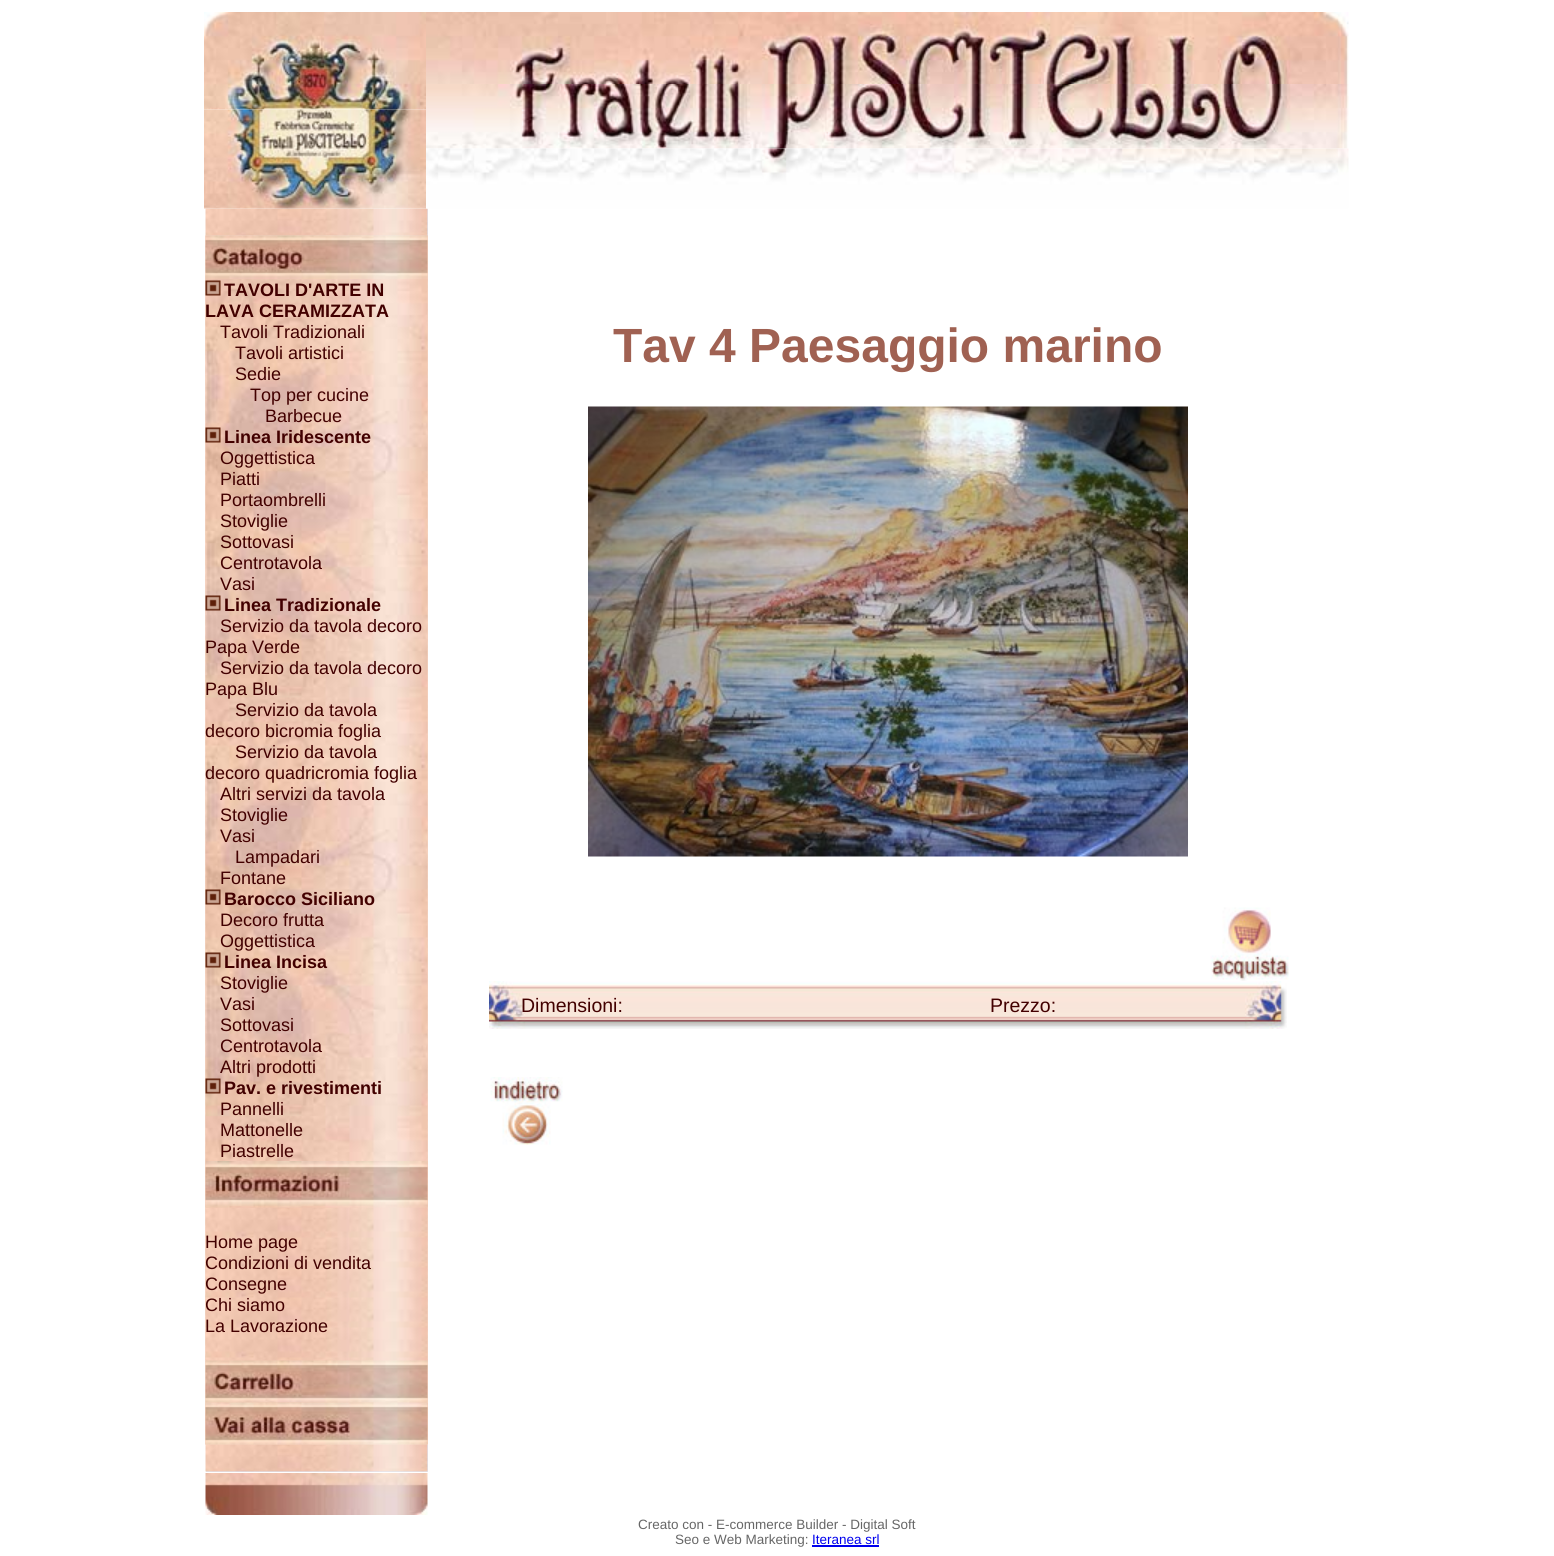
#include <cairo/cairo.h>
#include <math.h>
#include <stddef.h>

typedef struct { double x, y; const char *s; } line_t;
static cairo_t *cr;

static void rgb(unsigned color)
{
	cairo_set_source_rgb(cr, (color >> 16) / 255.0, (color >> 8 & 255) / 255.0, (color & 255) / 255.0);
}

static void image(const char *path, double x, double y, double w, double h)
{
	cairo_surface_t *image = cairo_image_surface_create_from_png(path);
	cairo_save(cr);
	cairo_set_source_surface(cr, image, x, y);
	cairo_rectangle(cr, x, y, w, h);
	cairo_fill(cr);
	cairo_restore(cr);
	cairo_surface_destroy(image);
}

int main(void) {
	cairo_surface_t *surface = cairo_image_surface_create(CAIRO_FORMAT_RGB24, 1554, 1556);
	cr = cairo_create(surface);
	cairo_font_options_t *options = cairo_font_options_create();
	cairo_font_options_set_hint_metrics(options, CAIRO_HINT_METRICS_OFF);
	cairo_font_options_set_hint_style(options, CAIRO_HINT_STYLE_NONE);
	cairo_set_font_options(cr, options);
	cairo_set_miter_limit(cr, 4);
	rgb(0xffffff);
	cairo_paint(cr);
	image("img/1.png", 204, 12, 222, 98);
	image("img/2.png", 426, 12, 923, 72);
	rgb(0xdae9fc);
	cairo_rectangle(cr, 206, 209, 222, 27);
	cairo_fill(cr);
	image("img/6.png", 205, 208, 223, 28);
	image("img/3.png", 204, 109, 222, 100);
	image("img/4.png", 426, 84, 923, 65);
	image("img/5.png", 426, 148, 923, 61);
	image("img/7.png", 205, 235, 223, 1210);
	image("img/8.png", 205, 235, 223, 1210);
	image("img/9.png", 205, 235, 223, 44);
	image("img/10.png", 205, 279, 223, 882);
	image("img/11.png", 205, 280, 16, 16);
	image("img/12.png", 205, 427, 16, 16);
	image("img/13.png", 205, 595, 16, 16);
	image("img/14.png", 205, 889, 16, 16);
	image("img/15.png", 205, 952, 16, 16);
	image("img/16.png", 205, 1078, 16, 16);
	image("img/17.png", 205, 1161, 223, 47);
	image("img/19.png", 205, 1207, 223, 154);
	image("img/18.png", 205, 1161, 223, 47);
	image("img/21.png", 205, 1402, 223, 43);
	image("img/20.png", 205, 1360, 223, 43);
	cairo_rectangle(cr, 206, 1445, 222, 27);
	cairo_fill(cr);
	image("img/27.png", 205, 1444, 223, 28);
	image("img/22.png", 205, 1402, 223, 43);
	image("img/23.png", 588, 406, 600, 451);
	image("img/24.png", 1210, 907, 79, 74);
	image("img/25.png", 489, 981, 798, 48);
	image("img/26.png", 490, 1077, 73, 68);
	image("img/28.png", 205, 1473, 223, 42);
	rgb(0x0000ee);
	cairo_rectangle(cr, 812, 1545, 67, 2);
	cairo_fill(cr);
	cairo_select_font_face(cr, "Liberation Sans", CAIRO_FONT_SLANT_NORMAL, CAIRO_FONT_WEIGHT_BOLD);
	cairo_set_font_size(cr, 18);
	rgb(0x420000);
	cairo_move_to(cr, 224, 296);
	cairo_show_text(cr, "TAVOLI D'ARTE IN");
	cairo_move_to(cr, 205, 317);
	cairo_show_text(cr, "LAVA CERAMIZZATA");
	cairo_select_font_face(cr, "Liberation Sans", CAIRO_FONT_SLANT_NORMAL, CAIRO_FONT_WEIGHT_NORMAL);
	{
		static const line_t items[] = {
			{220, 338, "Tavoli Tradizionali"},
			{235, 359, "Tavoli artistici"},
			{235, 380, "Sedie"},
			{250, 401, "Top per cucine"},
			{265, 422, "Barbecue"},
		};
		for (size_t i = 0; i < sizeof items / sizeof *items; i++) {
			cairo_move_to(cr, items[i].x, items[i].y);
			cairo_show_text(cr, items[i].s);
		}
	}
	cairo_select_font_face(cr, "Liberation Sans", CAIRO_FONT_SLANT_NORMAL, CAIRO_FONT_WEIGHT_BOLD);
	cairo_move_to(cr, 224, 443);
	cairo_show_text(cr, "Linea Iridescente");
	cairo_select_font_face(cr, "Liberation Sans", CAIRO_FONT_SLANT_NORMAL, CAIRO_FONT_WEIGHT_NORMAL);
	{
		static const line_t items[] = {
			{220, 464, "Oggettistica"},
			{220, 485, "Piatti"},
			{220, 506, "Portaombrelli"},
			{220, 527, "Stoviglie"},
			{220, 548, "Sottovasi"},
			{220, 569, "Centrotavola"},
			{220, 590, "Vasi"},
		};
		for (size_t i = 0; i < sizeof items / sizeof *items; i++) {
			cairo_move_to(cr, items[i].x, items[i].y);
			cairo_show_text(cr, items[i].s);
		}
	}
	cairo_select_font_face(cr, "Liberation Sans", CAIRO_FONT_SLANT_NORMAL, CAIRO_FONT_WEIGHT_BOLD);
	cairo_move_to(cr, 224, 611);
	cairo_show_text(cr, "Linea Tradizionale");
	cairo_select_font_face(cr, "Liberation Sans", CAIRO_FONT_SLANT_NORMAL, CAIRO_FONT_WEIGHT_NORMAL);
	{
		static const line_t items[] = {
			{220, 632, "Servizio da tavola decoro"},
			{205, 653, "Papa Verde"},
			{220, 674, "Servizio da tavola decoro"},
			{205, 695, "Papa Blu"},
			{235, 716, "Servizio da tavola"},
			{205, 737, "decoro bicromia foglia"},
			{235, 758, "Servizio da tavola"},
			{205, 779, "decoro quadricromia foglia"},
			{220, 800, "Altri servizi da tavola"},
			{220, 821, "Stoviglie"},
			{220, 842, "Vasi"},
			{235, 863, "Lampadari"},
			{220, 884, "Fontane"},
		};
		for (size_t i = 0; i < sizeof items / sizeof *items; i++) {
			cairo_move_to(cr, items[i].x, items[i].y);
			cairo_show_text(cr, items[i].s);
		}
	}
	cairo_select_font_face(cr, "Liberation Sans", CAIRO_FONT_SLANT_NORMAL, CAIRO_FONT_WEIGHT_BOLD);
	cairo_move_to(cr, 224, 905);
	cairo_show_text(cr, "Barocco Siciliano");
	cairo_select_font_face(cr, "Liberation Sans", CAIRO_FONT_SLANT_NORMAL, CAIRO_FONT_WEIGHT_NORMAL);
	cairo_move_to(cr, 220, 926);
	cairo_show_text(cr, "Decoro frutta");
	cairo_move_to(cr, 220, 947);
	cairo_show_text(cr, "Oggettistica");
	cairo_select_font_face(cr, "Liberation Sans", CAIRO_FONT_SLANT_NORMAL, CAIRO_FONT_WEIGHT_BOLD);
	cairo_move_to(cr, 224, 968);
	cairo_show_text(cr, "Linea Incisa");
	cairo_select_font_face(cr, "Liberation Sans", CAIRO_FONT_SLANT_NORMAL, CAIRO_FONT_WEIGHT_NORMAL);
	{
		static const line_t items[] = {
			{220, 989, "Stoviglie"},
			{220, 1010, "Vasi"},
			{220, 1031, "Sottovasi"},
			{220, 1052, "Centrotavola"},
			{220, 1073, "Altri prodotti"},
		};
		for (size_t i = 0; i < sizeof items / sizeof *items; i++) {
			cairo_move_to(cr, items[i].x, items[i].y);
			cairo_show_text(cr, items[i].s);
		}
	}
	cairo_select_font_face(cr, "Liberation Sans", CAIRO_FONT_SLANT_NORMAL, CAIRO_FONT_WEIGHT_BOLD);
	cairo_move_to(cr, 224, 1094);
	cairo_show_text(cr, "Pav. e rivestimenti");
	cairo_select_font_face(cr, "Liberation Sans", CAIRO_FONT_SLANT_NORMAL, CAIRO_FONT_WEIGHT_NORMAL);
	{
		static const line_t items[] = {
			{220, 1115, "Pannelli"},
			{220, 1136, "Mattonelle"},
			{220, 1157, "Piastrelle"},
			{205, 1248, "Home page"},
			{205, 1269, "Condizioni di vendita"},
			{205, 1290, "Consegne"},
			{205, 1311, "Chi siamo"},
			{205, 1332, "La Lavorazione"},
		};
		for (size_t i = 0; i < sizeof items / sizeof *items; i++) {
			cairo_move_to(cr, items[i].x, items[i].y);
			cairo_show_text(cr, items[i].s);
		}
	}
	cairo_select_font_face(cr, "Liberation Sans", CAIRO_FONT_SLANT_NORMAL, CAIRO_FONT_WEIGHT_BOLD);
	cairo_set_font_size(cr, 48);
	rgb(0xa06152);
	cairo_move_to(cr, 613, 362);
	cairo_show_text(cr, "Tav 4 Paesaggio marino");
	cairo_select_font_face(cr, "Liberation Sans", CAIRO_FONT_SLANT_NORMAL, CAIRO_FONT_WEIGHT_NORMAL);
	cairo_set_font_size(cr, 19.5);
	rgb(0x420000);
	cairo_move_to(cr, 521, 1012);
	cairo_show_text(cr, "Dimensioni:");
	cairo_move_to(cr, 990, 1012);
	cairo_show_text(cr, "Prezzo:");
	cairo_set_font_size(cr, 13.5);
	rgb(0x666666);
	cairo_move_to(cr, 638, 1529);
	cairo_show_text(cr, "Creato con - E-commerce Builder - Digital Soft");
	cairo_move_to(cr, 675, 1544);
	cairo_show_text(cr, "Seo e Web Marketing:");
	rgb(0x0000ee);
	cairo_move_to(cr, 812, 1544);
	cairo_show_text(cr, "Iteranea srl");
	cairo_surface_write_to_png(surface, "page.png");
	cairo_font_options_destroy(options);
	cairo_destroy(cr);
	cairo_surface_destroy(surface);
	return 0;
}
